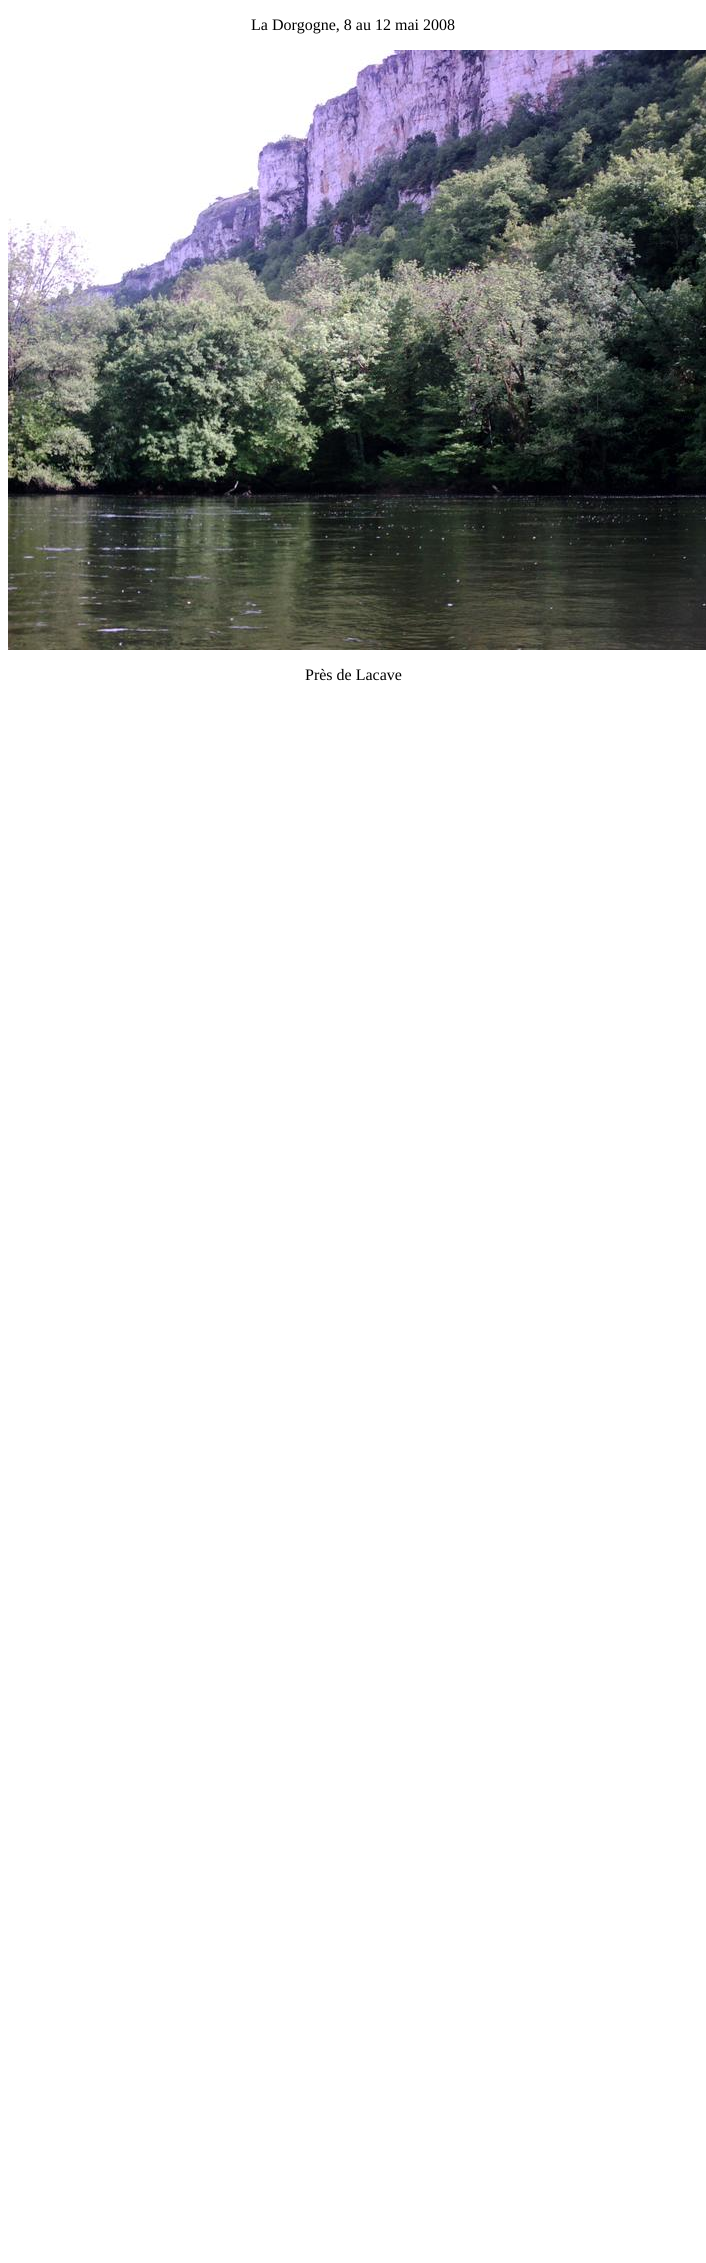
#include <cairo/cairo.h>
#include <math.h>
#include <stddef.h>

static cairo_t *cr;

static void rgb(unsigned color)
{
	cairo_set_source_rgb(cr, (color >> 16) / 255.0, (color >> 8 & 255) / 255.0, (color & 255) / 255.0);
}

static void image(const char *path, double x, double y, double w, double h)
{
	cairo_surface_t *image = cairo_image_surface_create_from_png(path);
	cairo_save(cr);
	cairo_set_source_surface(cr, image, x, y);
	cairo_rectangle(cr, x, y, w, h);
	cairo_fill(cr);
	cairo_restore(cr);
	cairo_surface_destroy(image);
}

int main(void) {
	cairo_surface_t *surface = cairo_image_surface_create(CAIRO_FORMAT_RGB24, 706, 2263);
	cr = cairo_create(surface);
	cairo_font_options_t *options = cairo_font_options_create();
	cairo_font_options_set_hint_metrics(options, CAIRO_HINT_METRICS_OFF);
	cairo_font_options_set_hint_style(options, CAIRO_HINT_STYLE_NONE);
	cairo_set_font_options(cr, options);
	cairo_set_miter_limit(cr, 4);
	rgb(0xffffff);
	cairo_paint(cr);
	image("img/1.png", 8, 50, 698, 600);
	cairo_select_font_face(cr, "Liberation Serif", CAIRO_FONT_SLANT_NORMAL, CAIRO_FONT_WEIGHT_NORMAL);
	cairo_set_font_size(cr, 16);
	rgb(0x000000);
	cairo_move_to(cr, 251, 30);
	cairo_show_text(cr, "La Dorgogne, 8 au 12 mai 2008");
	cairo_move_to(cr, 305, 680);
	cairo_show_text(cr, "Près de Lacave");
	cairo_surface_write_to_png(surface, "page.png");
	cairo_font_options_destroy(options);
	cairo_destroy(cr);
	cairo_surface_destroy(surface);
	return 0;
}
